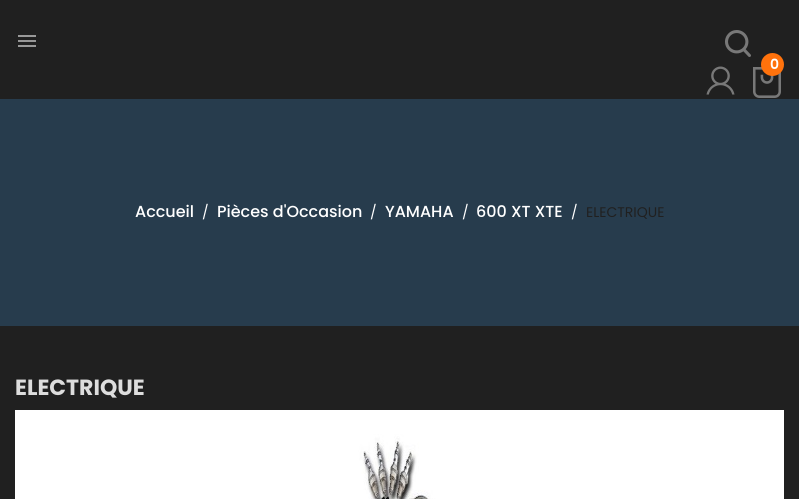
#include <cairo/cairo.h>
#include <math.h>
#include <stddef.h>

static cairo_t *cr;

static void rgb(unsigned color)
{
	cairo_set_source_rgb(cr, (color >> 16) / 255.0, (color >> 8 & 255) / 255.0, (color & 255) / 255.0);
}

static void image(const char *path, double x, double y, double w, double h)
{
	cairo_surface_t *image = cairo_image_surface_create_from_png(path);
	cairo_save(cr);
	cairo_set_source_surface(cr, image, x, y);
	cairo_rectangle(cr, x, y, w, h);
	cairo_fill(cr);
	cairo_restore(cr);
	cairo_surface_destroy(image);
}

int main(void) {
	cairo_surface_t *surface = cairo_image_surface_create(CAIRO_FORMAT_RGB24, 799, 499);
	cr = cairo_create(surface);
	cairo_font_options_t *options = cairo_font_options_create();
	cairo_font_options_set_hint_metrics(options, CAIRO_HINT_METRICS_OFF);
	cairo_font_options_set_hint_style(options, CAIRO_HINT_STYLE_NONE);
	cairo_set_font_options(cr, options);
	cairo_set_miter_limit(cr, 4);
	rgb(0x202020);
	cairo_paint(cr);
	image("img/1.png", 18, 35, 18, 12);
	image("img/2.png", 725, 30, 26, 27);
	image("img/3.png", 753, 67, 28, 31);
	rgb(0xff720c);
	cairo_arc(cr, 772.5, 64.5, 11.5, 0, 2 * M_PI);
	cairo_fill(cr);
	image("img/4.png", 706, 66, 29, 29);
	rgb(0x273c4d);
	cairo_rectangle(cr, 0, 99, 799, 227);
	cairo_fill(cr);
	image("img/5.png", 15, 410, 769, 89);
	cairo_select_font_face(cr, "Poppins SemiBold", CAIRO_FONT_SLANT_NORMAL, CAIRO_FONT_WEIGHT_NORMAL);
	cairo_set_font_size(cr, 14);
	rgb(0xffffff);
	cairo_move_to(cr, 770, 69);
	cairo_show_text(cr, "0");
	cairo_select_font_face(cr, "Poppins Medium", CAIRO_FONT_SLANT_NORMAL, CAIRO_FONT_WEIGHT_NORMAL);
	cairo_set_font_size(cr, 16);
	cairo_move_to(cr, 135, 217);
	cairo_show_text(cr, "Accueil");
	cairo_select_font_face(cr, "Poppins", CAIRO_FONT_SLANT_NORMAL, CAIRO_FONT_WEIGHT_NORMAL);
	cairo_set_font_size(cr, 14);
	cairo_move_to(cr, 202, 217);
	cairo_show_text(cr, "/");
	cairo_select_font_face(cr, "Poppins Medium", CAIRO_FONT_SLANT_NORMAL, CAIRO_FONT_WEIGHT_NORMAL);
	cairo_set_font_size(cr, 16);
	cairo_move_to(cr, 217, 217);
	cairo_show_text(cr, "Pièces d'Occasion");
	cairo_select_font_face(cr, "Poppins", CAIRO_FONT_SLANT_NORMAL, CAIRO_FONT_WEIGHT_NORMAL);
	cairo_set_font_size(cr, 14);
	cairo_move_to(cr, 370, 217);
	cairo_show_text(cr, "/");
	cairo_select_font_face(cr, "Poppins Medium", CAIRO_FONT_SLANT_NORMAL, CAIRO_FONT_WEIGHT_NORMAL);
	cairo_set_font_size(cr, 16);
	cairo_move_to(cr, 385, 217);
	cairo_show_text(cr, "YAMAHA");
	cairo_select_font_face(cr, "Poppins", CAIRO_FONT_SLANT_NORMAL, CAIRO_FONT_WEIGHT_NORMAL);
	cairo_set_font_size(cr, 14);
	cairo_move_to(cr, 462, 217);
	cairo_show_text(cr, "/");
	cairo_select_font_face(cr, "Poppins Medium", CAIRO_FONT_SLANT_NORMAL, CAIRO_FONT_WEIGHT_NORMAL);
	cairo_set_font_size(cr, 16);
	cairo_move_to(cr, 476, 217);
	cairo_show_text(cr, "600 XT XTE");
	cairo_select_font_face(cr, "Poppins", CAIRO_FONT_SLANT_NORMAL, CAIRO_FONT_WEIGHT_NORMAL);
	cairo_set_font_size(cr, 14);
	cairo_move_to(cr, 571, 217);
	cairo_show_text(cr, "/");
	rgb(0x202020);
	cairo_move_to(cr, 586, 217);
	cairo_show_text(cr, "ELECTRIQUE");
	cairo_select_font_face(cr, "Poppins", CAIRO_FONT_SLANT_NORMAL, CAIRO_FONT_WEIGHT_BOLD);
	cairo_set_font_size(cr, 22);
	rgb(0xdddddd);
	cairo_move_to(cr, 15, 395);
	cairo_show_text(cr, "ELECTRIQUE");
	cairo_surface_write_to_png(surface, "page.png");
	cairo_font_options_destroy(options);
	cairo_destroy(cr);
	cairo_surface_destroy(surface);
	return 0;
}
